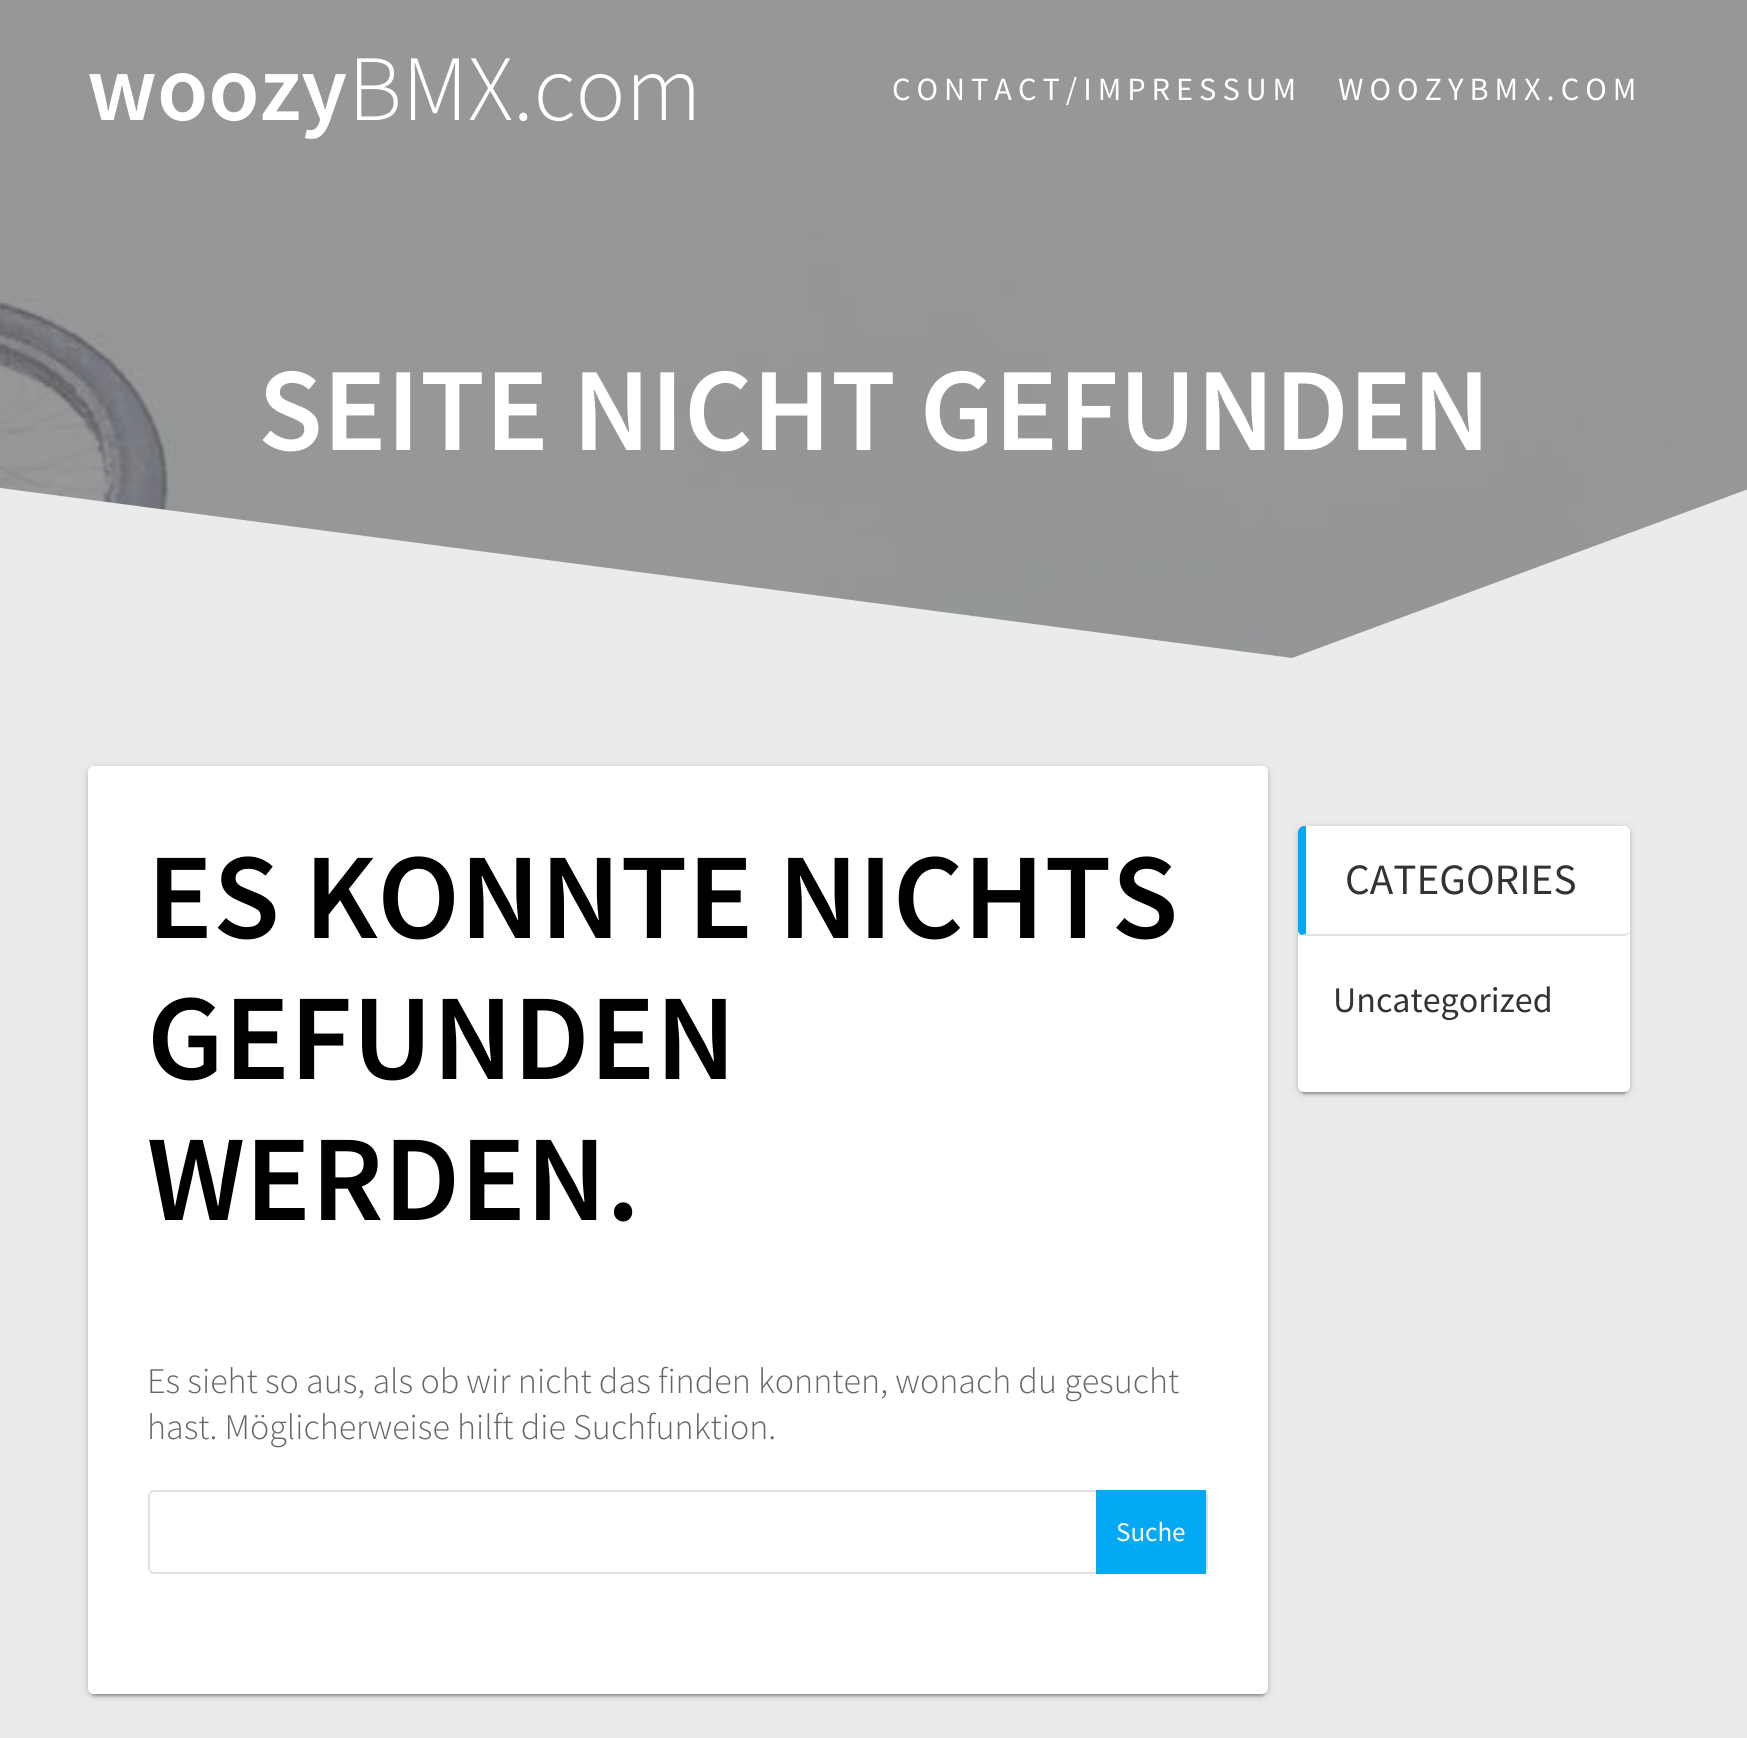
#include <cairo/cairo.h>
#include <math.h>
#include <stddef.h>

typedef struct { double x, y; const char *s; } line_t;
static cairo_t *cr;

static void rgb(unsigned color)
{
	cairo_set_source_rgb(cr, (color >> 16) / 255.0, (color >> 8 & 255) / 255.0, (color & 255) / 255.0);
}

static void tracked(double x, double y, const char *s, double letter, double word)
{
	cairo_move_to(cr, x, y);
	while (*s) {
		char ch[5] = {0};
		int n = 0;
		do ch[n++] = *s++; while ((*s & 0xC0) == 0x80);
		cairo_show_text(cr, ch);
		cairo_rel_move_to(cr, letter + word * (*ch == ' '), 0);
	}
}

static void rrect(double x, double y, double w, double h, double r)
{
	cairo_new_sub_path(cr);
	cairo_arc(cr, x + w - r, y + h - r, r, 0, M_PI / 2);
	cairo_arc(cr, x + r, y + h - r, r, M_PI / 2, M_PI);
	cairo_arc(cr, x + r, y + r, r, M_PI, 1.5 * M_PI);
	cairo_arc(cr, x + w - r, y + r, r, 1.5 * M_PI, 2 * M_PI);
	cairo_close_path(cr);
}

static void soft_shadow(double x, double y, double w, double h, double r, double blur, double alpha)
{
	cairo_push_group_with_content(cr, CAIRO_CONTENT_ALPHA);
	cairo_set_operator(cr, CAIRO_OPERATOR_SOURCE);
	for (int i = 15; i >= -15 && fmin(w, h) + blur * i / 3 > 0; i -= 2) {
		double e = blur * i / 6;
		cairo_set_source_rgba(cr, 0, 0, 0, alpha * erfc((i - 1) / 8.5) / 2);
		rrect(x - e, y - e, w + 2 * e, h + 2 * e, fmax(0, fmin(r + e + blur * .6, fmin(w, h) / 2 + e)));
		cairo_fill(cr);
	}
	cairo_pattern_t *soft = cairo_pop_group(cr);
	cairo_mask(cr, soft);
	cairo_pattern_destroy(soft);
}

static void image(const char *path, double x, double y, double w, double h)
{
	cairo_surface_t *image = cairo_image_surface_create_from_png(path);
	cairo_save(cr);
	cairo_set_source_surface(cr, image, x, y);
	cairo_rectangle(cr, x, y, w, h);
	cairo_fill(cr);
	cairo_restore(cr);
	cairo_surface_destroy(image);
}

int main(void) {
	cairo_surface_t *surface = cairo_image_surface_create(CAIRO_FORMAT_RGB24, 1747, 1738);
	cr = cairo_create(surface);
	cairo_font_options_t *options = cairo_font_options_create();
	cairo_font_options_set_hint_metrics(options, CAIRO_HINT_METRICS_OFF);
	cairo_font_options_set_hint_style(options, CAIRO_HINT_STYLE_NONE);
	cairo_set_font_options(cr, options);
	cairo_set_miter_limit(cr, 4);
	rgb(0xebebeb);
	cairo_paint(cr);
	image("img/1.png", 0, 0, 1747, 658);
	cairo_save(cr);
	cairo_rectangle(cr, 0, 488, 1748, 178);
	cairo_clip(cr);
	rgb(0xebebeb);
	cairo_new_path(cr);
	cairo_move_to(cr, 1292, 658);
	cairo_line_to(cr, 0, 488);
	cairo_line_to(cr, 0, 668);
	cairo_line_to(cr, 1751, 668);
	cairo_line_to(cr, 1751, 488);
	cairo_close_path(cr);
	cairo_fill(cr);
	cairo_restore(cr);
	rgb(0x000000);
	soft_shadow(88, 768, 1180, 928, 6, 5, 0.12);
	soft_shadow(92, 776, 1172, 920, 2, 1, 0.2);
	soft_shadow(88, 768, 1180, 928, 6, 2, 0.14);
	rgb(0xffffff);
	rrect(88, 766, 1180, 928, 6);
	cairo_fill(cr);
	rrect(149, 1491, 1058, 82, 5);
	rgb(0xe0e0e0);
	cairo_stroke(cr);
	rgb(0x03a9f4);
	cairo_rectangle(cr, 1096, 1490, 110, 84);
	cairo_fill(cr);
	rgb(0x000000);
	soft_shadow(1298, 828, 332, 266, 6, 5, 0.12);
	soft_shadow(1302, 836, 324, 258, 2, 1, 0.2);
	soft_shadow(1298, 828, 332, 266, 6, 2, 0.14);
	rgb(0xffffff);
	rrect(1298, 826, 332, 266, 6);
	cairo_fill(cr);
	rgb(0xe0e0e0);
	cairo_new_path(cr);
	cairo_move_to(cr, 1304, 936);
	cairo_line_to(cr, 1624, 936);
	cairo_curve_to(cr, 1627, 936, 1630, 933, 1630, 930);
	cairo_curve_to(cr, 1630, 932, 1627, 934, 1624, 934);
	cairo_line_to(cr, 1306, 934);
	cairo_line_to(cr, 1301, 935);
	cairo_close_path(cr);
	cairo_fill(cr);
	rgb(0x03a8f4);
	cairo_new_path(cr);
	cairo_move_to(cr, 1304, 826);
	cairo_line_to(cr, 1306, 826);
	cairo_line_to(cr, 1306, 934);
	cairo_line_to(cr, 1301, 935);
	cairo_curve_to(cr, 1299, 934, 1298, 932, 1298, 930);
	cairo_line_to(cr, 1298, 832);
	cairo_curve_to(cr, 1298, 829, 1301, 826, 1304, 826);
	cairo_close_path(cr);
	cairo_fill(cr);
	cairo_select_font_face(cr, "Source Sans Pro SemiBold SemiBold", CAIRO_FONT_SLANT_NORMAL, CAIRO_FONT_WEIGHT_NORMAL);
	cairo_set_font_size(cr, 93.5);
	rgb(0xffffff);
	cairo_move_to(cr, 87, 120);
	cairo_show_text(cr, "woozy");
	cairo_select_font_face(cr, "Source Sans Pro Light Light", CAIRO_FONT_SLANT_NORMAL, CAIRO_FONT_WEIGHT_NORMAL);
	cairo_move_to(cr, 348, 120);
	cairo_show_text(cr, "BMX.com");
	cairo_select_font_face(cr, "Source Sans Pro", CAIRO_FONT_SLANT_NORMAL, CAIRO_FONT_WEIGHT_NORMAL);
	cairo_set_font_size(cr, 32.4);
	tracked(892, 100, "CONTACT/IMPRESSUM", 6, 0);
	tracked(1338, 100, "WOOZYBMX.COM", 6, 0);
	cairo_select_font_face(cr, "Source Sans Pro SemiBold SemiBold", CAIRO_FONT_SLANT_NORMAL, CAIRO_FONT_WEIGHT_NORMAL);
	cairo_set_font_size(cr, 118.75);
	cairo_move_to(cr, 258, 450);
	cairo_show_text(cr, "SEITE NICHT GEFUNDEN");
	cairo_set_font_size(cr, 122.5);
	rgb(0x000000);
	{
		static const line_t items[] = {
			{147, 938, "ES KONNTE NICHTS"},
			{147, 1079, "GEFUNDEN"},
			{147, 1220, "WERDEN."},
		};
		for (size_t i = 0; i < sizeof items / sizeof *items; i++) {
			cairo_move_to(cr, items[i].x, items[i].y);
			cairo_show_text(cr, items[i].s);
		}
	}
	cairo_select_font_face(cr, "Source Sans Pro Light Light", CAIRO_FONT_SLANT_NORMAL, CAIRO_FONT_WEIGHT_NORMAL);
	cairo_set_font_size(cr, 36);
	rgb(0x666666);
	cairo_move_to(cr, 147, 1393);
	cairo_show_text(cr, "Es sieht so aus, als ob wir nicht das finden konnten, wonach du gesucht");
	cairo_move_to(cr, 147, 1439);
	cairo_show_text(cr, "hast. Möglicherweise hilft die Suchfunktion.");
	cairo_select_font_face(cr, "Source Sans Pro", CAIRO_FONT_SLANT_NORMAL, CAIRO_FONT_WEIGHT_NORMAL);
	cairo_set_font_size(cr, 27);
	rgb(0xffffff);
	cairo_move_to(cr, 1116, 1541);
	cairo_show_text(cr, "Suche");
	cairo_set_font_size(cr, 43.25);
	rgb(0x333333);
	cairo_move_to(cr, 1345, 894);
	cairo_show_text(cr, "CATEGORIES");
	cairo_set_font_size(cr, 36);
	cairo_move_to(cr, 1333, 1012);
	cairo_show_text(cr, "Uncategorized");
	cairo_surface_write_to_png(surface, "page.png");
	cairo_font_options_destroy(options);
	cairo_destroy(cr);
	cairo_surface_destroy(surface);
	return 0;
}
